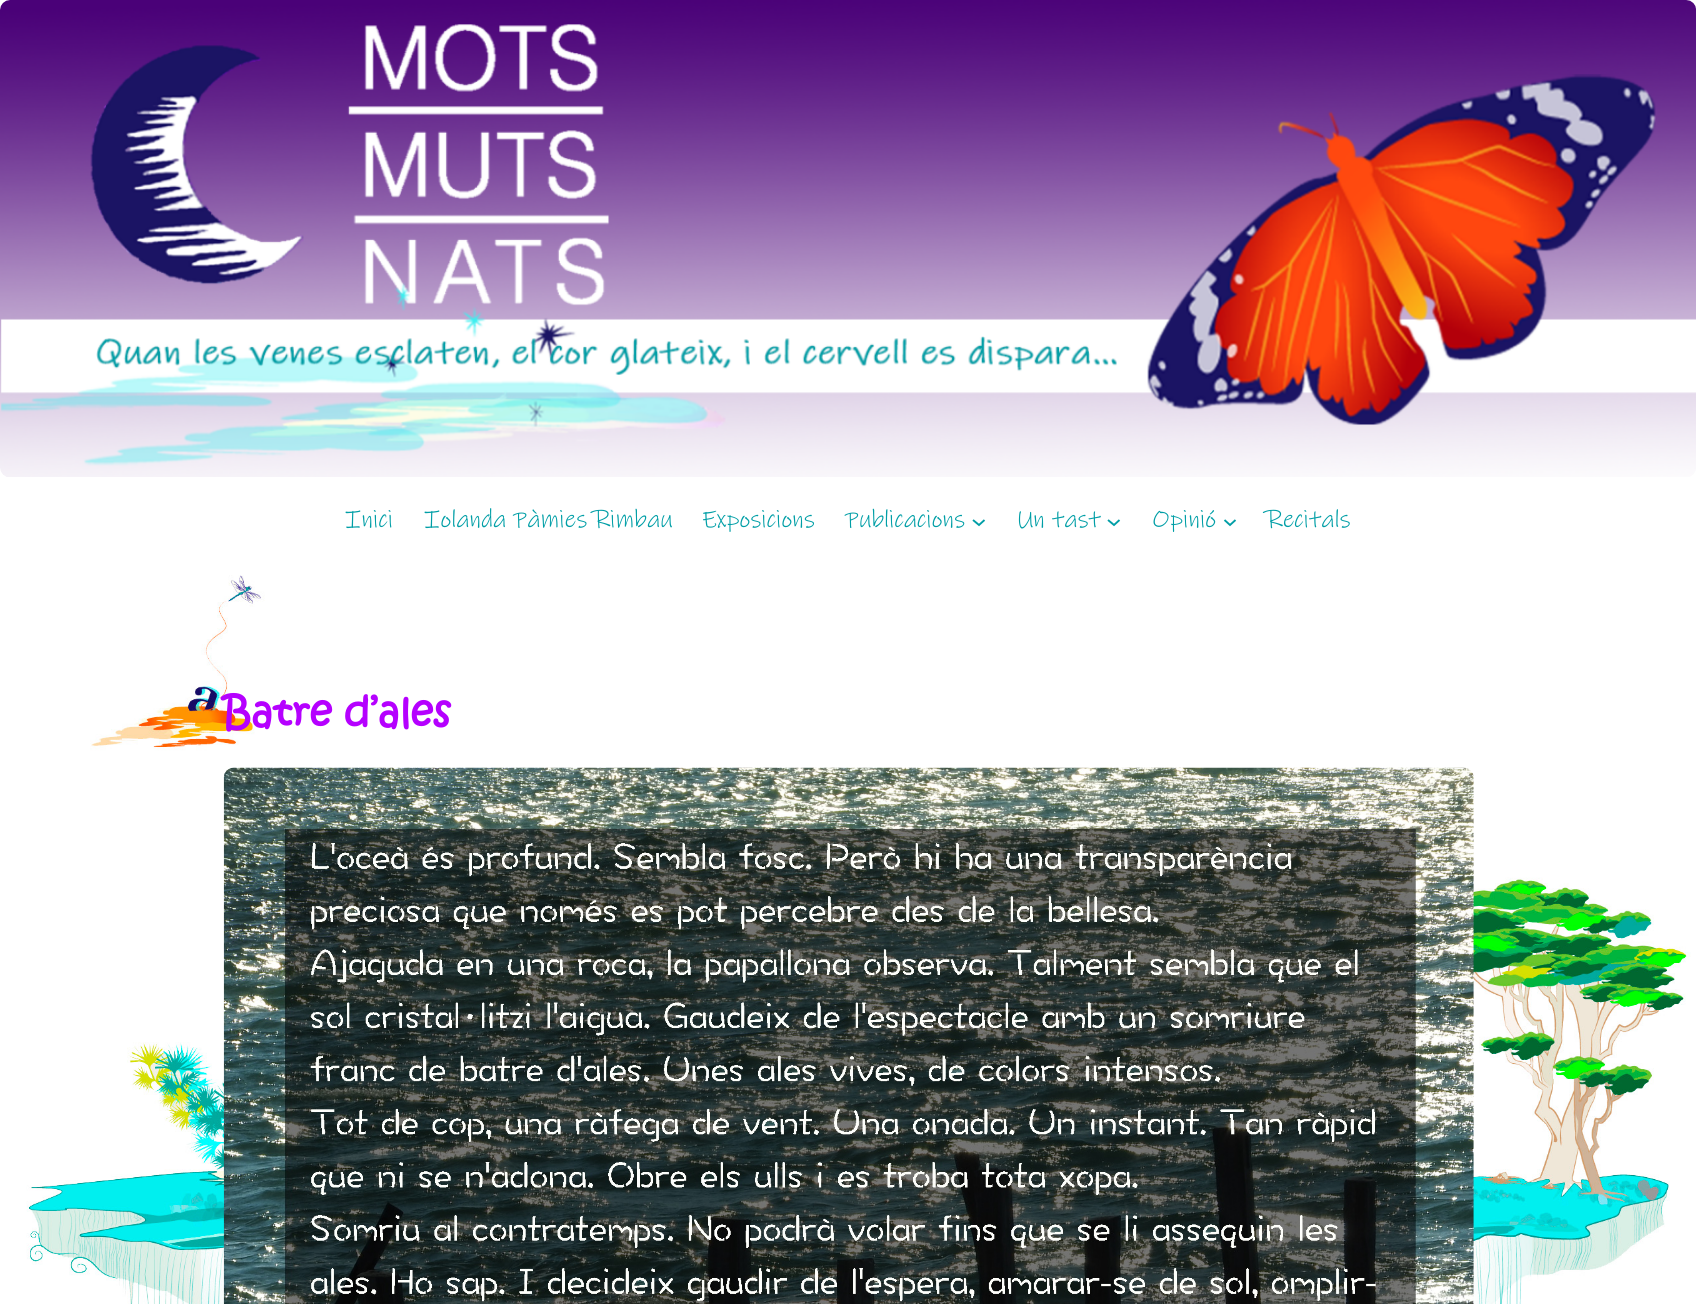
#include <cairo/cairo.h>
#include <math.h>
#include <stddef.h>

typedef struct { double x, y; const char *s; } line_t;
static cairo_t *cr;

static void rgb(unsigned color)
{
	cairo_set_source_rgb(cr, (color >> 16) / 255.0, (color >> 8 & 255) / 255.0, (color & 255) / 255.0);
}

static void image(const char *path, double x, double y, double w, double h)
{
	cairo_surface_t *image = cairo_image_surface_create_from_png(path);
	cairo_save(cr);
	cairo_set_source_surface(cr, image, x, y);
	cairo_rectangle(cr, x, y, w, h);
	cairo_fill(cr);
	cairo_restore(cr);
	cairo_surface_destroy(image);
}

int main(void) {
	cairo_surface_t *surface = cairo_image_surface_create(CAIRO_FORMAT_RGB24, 1696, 1304);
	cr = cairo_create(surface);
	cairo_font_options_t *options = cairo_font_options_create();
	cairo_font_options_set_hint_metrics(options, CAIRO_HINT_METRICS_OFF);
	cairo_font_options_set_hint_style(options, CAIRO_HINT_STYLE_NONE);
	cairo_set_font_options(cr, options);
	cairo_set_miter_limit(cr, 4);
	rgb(0xffffff);
	cairo_paint(cr);
	image("img/1.png", 0, 0, 1696, 477);
	cairo_new_path(cr);
	cairo_move_to(cr, 973, 520);
	cairo_line_to(cr, 979, 525);
	cairo_line_to(cr, 984.5, 520);
	rgb(0x009ea6);
	cairo_set_line_width(cr, 1.9);
	cairo_stroke(cr);
	cairo_new_path(cr);
	cairo_move_to(cr, 1108, 520);
	cairo_line_to(cr, 1114, 525);
	cairo_line_to(cr, 1119.5, 520);
	cairo_stroke(cr);
	cairo_new_path(cr);
	cairo_move_to(cr, 1224.5, 520);
	cairo_line_to(cr, 1230, 525);
	cairo_line_to(cr, 1235.5, 520);
	cairo_stroke(cr);
	image("img/2.png", 26, 575, 1665, 729);
	image("img/3.png", 223, 767, 1251, 537);
	cairo_select_font_face(cr, "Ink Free", CAIRO_FONT_SLANT_NORMAL, CAIRO_FONT_WEIGHT_NORMAL);
	cairo_set_font_size(cr, 25);
	{
		static const line_t items[] = {
			{345, 527, "Inici"},
			{424, 527, "Iolanda Pàmies Rimbau"},
			{702, 527, "Exposicions"},
			{845, 527, "Publicacions"},
			{1017, 527, "Un tast"},
			{1152, 527, "Opinió"},
			{1267, 527, "Recitals"},
		};
		for (size_t i = 0; i < sizeof items / sizeof *items; i++) {
			cairo_move_to(cr, items[i].x, items[i].y);
			cairo_show_text(cr, items[i].s);
		}
	}
	cairo_select_font_face(cr, "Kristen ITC", CAIRO_FONT_SLANT_NORMAL, CAIRO_FONT_WEIGHT_BOLD);
	cairo_set_font_size(cr, 40);
	rgb(0xb500ff);
	cairo_move_to(cr, 223, 727);
	cairo_show_text(cr, "Batre d’ales");
	cairo_surface_write_to_png(surface, "page.png");
	cairo_font_options_destroy(options);
	cairo_destroy(cr);
	cairo_surface_destroy(surface);
	return 0;
}
